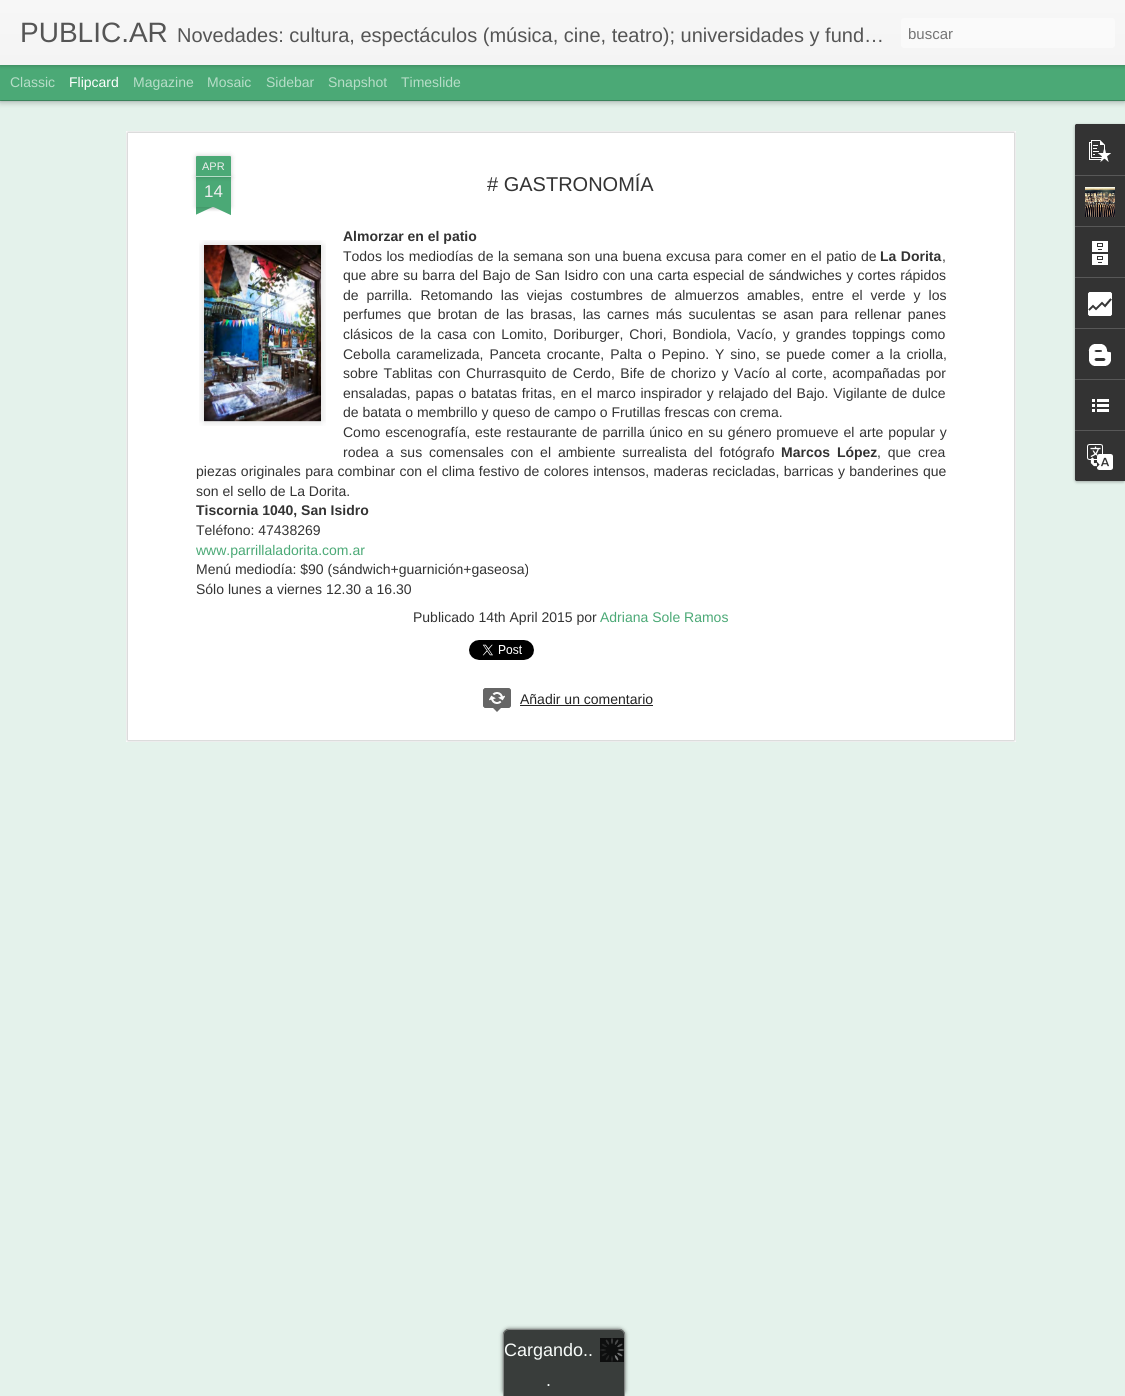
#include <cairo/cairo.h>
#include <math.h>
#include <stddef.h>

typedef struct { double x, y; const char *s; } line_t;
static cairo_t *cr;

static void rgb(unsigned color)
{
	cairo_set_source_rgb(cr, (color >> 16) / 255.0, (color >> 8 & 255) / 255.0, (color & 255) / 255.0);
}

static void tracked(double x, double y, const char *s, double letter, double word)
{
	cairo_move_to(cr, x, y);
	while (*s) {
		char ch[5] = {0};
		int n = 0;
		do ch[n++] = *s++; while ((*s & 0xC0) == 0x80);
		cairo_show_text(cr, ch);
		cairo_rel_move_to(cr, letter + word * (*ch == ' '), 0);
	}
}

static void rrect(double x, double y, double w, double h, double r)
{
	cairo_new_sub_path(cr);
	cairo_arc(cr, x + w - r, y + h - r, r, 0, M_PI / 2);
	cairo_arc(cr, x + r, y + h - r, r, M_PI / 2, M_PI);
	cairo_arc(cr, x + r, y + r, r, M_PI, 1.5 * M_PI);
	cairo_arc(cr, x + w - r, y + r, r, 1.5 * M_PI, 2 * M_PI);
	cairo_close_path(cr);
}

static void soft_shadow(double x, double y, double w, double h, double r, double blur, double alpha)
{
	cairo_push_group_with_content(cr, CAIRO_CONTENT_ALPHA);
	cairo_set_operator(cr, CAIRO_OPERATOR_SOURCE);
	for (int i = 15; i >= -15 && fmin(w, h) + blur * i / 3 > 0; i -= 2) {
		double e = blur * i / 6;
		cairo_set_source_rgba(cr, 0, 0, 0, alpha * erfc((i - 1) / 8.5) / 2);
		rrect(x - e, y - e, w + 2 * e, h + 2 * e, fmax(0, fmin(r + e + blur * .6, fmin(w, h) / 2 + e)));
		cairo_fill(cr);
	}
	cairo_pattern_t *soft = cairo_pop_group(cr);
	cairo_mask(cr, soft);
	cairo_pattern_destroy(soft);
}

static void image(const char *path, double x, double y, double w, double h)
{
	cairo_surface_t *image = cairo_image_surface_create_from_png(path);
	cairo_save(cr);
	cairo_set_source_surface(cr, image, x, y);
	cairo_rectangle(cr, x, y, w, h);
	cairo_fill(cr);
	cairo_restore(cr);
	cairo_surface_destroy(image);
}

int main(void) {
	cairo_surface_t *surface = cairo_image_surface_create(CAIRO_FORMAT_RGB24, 1125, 1396);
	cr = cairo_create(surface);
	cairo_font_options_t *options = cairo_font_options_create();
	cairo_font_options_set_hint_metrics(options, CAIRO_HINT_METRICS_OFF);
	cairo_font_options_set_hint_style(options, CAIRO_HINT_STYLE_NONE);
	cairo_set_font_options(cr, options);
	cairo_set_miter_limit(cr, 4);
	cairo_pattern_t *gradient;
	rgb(0x4ba976);
	cairo_paint(cr);
	rgb(0xe4f2eb);
	cairo_rectangle(cr, 0, 101, 1125, 1295);
	cairo_fill(cr);
	rgb(0x000000);
	soft_shadow(0, 65, 1125, 35, 0, 4, 0.5);
	rgb(0x4ba976);
	cairo_rectangle(cr, 0, 65, 1125, 35);
	cairo_fill(cr);
	rgb(0x000000);
	soft_shadow(0, 0, 1125, 65, 0, 2.5, 0.3);
	gradient = cairo_pattern_create_linear(0, 0, 0, 65);
	cairo_pattern_add_color_stop_rgba(gradient, 0, 0.969, 0.969, 0.969, 1);
	cairo_pattern_add_color_stop_rgba(gradient, 1, 0.957, 0.957, 0.957, 1);
	cairo_set_source(cr, gradient);
	cairo_pattern_destroy(gradient);
	cairo_rectangle(cr, 0, 0, 1125, 65);
	cairo_fill(cr);
	rgb(0xfafafa);
	rrect(901, 18, 214, 30, 3);
	cairo_fill(cr);
	rgb(0xffffff);
	cairo_rectangle(cr, 126, 131, 890, 611);
	cairo_fill(cr);
	image("img/1.png", 126, 131, 890, 611);
	rgb(0x000000);
	soft_shadow(196, 177, 35, 30, 0, 2.5, 0.2);
	rgb(0x4ba976);
	cairo_rectangle(cr, 196, 177, 35, 30);
	cairo_fill(cr);
	rgb(0x000000);
	soft_shadow(196, 156, 35, 21, 1, 2.5, 0.2);
	rgb(0x4ba976);
	cairo_new_path(cr);
	cairo_move_to(cr, 197, 156);
	cairo_line_to(cr, 230, 156);
	cairo_curve_to(cr, 230.5, 156, 231, 156.5, 231, 157);
	cairo_line_to(cr, 231, 177);
	cairo_line_to(cr, 196, 177);
	cairo_line_to(cr, 196, 157);
	cairo_curve_to(cr, 196, 156.5, 196.5, 156, 197, 156);
	cairo_close_path(cr);
	cairo_fill(cr);
	rgb(0xb7ddc8);
	cairo_rectangle(cr, 196, 176, 35, 1);
	cairo_fill(cr);
	cairo_save(cr);
	cairo_rectangle(cr, 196, 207, 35, 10);
	cairo_clip(cr);
	rgb(0x000000);
	soft_shadow(187, 197, 50, 10, 0, 2.5, 0.2);
	cairo_restore(cr);
	cairo_save(cr);
	cairo_rectangle(cr, 196, 207, 35, 10);
	cairo_clip(cr);
	rgb(0x4ba976);
	cairo_new_path(cr);
	cairo_move_to(cr, 187, 208);
	cairo_line_to(cr, 232, 187);
	cairo_line_to(cr, 236, 196);
	cairo_line_to(cr, 191, 217);
	cairo_close_path(cr);
	cairo_fill(cr);
	cairo_restore(cr);
	cairo_save(cr);
	cairo_rectangle(cr, 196, 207, 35, 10);
	cairo_clip(cr);
	rgb(0x000000);
	soft_shadow(190, 197, 50, 10, 0, 2.5, 0.2);
	cairo_restore(cr);
	cairo_save(cr);
	cairo_rectangle(cr, 196, 207, 35, 10);
	cairo_clip(cr);
	rgb(0x4ba976);
	cairo_new_path(cr);
	cairo_move_to(cr, 194, 187);
	cairo_line_to(cr, 239, 208);
	cairo_line_to(cr, 235, 217);
	cairo_line_to(cr, 190, 196);
	cairo_close_path(cr);
	cairo_fill(cr);
	cairo_restore(cr);
	image("img/2.png", 199, 240, 127, 186);
	image("img/3.png", 204, 245, 117, 177);
	image("img/4.png", 469, 640, 65, 20);
	rgb(0x666666);
	rrect(483, 688, 28, 20, 3);
	cairo_fill(cr);
	image("img/5.png", 489, 692, 16, 12);
	rrect(483.5, 688.5, 27, 19, 2.5);
	cairo_set_line_width(cr, 1);
	cairo_stroke(cr);
	cairo_new_path(cr);
	cairo_move_to(cr, 492, 707);
	cairo_line_to(cr, 502, 707);
	cairo_line_to(cr, 497, 712);
	cairo_close_path(cr);
	cairo_fill(cr);
	rgb(0x222222);
	cairo_rectangle(cr, 520, 705, 133, 1);
	cairo_fill(cr);
	rgb(0x000000);
	soft_shadow(1075, 125, 50, 357, 2, 1.5, 0.3);
	rgb(0x333333);
	cairo_new_path(cr);
	cairo_move_to(cr, 1077, 124);
	cairo_line_to(cr, 1125, 124);
	cairo_line_to(cr, 1125, 481);
	cairo_line_to(cr, 1077, 481);
	cairo_curve_to(cr, 1076, 481, 1075, 480, 1075, 479);
	cairo_line_to(cr, 1075, 126);
	cairo_curve_to(cr, 1075, 125, 1076, 124, 1077, 124);
	cairo_close_path(cr);
	cairo_fill(cr);
	cairo_new_path(cr);
	cairo_move_to(cr, 1077, 124);
	cairo_line_to(cr, 1125, 124);
	cairo_line_to(cr, 1125, 175);
	cairo_line_to(cr, 1075, 175);
	cairo_line_to(cr, 1075, 126);
	cairo_curve_to(cr, 1075, 125, 1076, 124, 1077, 124);
	cairo_close_path(cr);
	cairo_fill(cr);
	image("img/6.png", 1089, 140, 22, 22);
	rgb(0x585858);
	cairo_rectangle(cr, 1075, 175, 50, 1);
	cairo_fill(cr);
	image("img/7.png", 1085, 187, 30, 30);
	cairo_rectangle(cr, 1075, 226, 50, 1);
	cairo_fill(cr);
	image("img/8.png", 1092, 241, 16, 24);
	cairo_rectangle(cr, 1075, 277, 50, 1);
	cairo_fill(cr);
	image("img/9.png", 1088, 292, 24, 24);
	cairo_rectangle(cr, 1075, 328, 50, 1);
	cairo_fill(cr);
	image("img/10.png", 1088, 344, 23, 22);
	cairo_rectangle(cr, 1075, 379, 50, 1);
	cairo_fill(cr);
	image("img/11.png", 1092, 399, 17, 13);
	rgb(0x333333);
	cairo_new_path(cr);
	cairo_move_to(cr, 1075, 430);
	cairo_line_to(cr, 1125, 430);
	cairo_line_to(cr, 1125, 481);
	cairo_line_to(cr, 1077, 481);
	cairo_curve_to(cr, 1076, 481, 1075, 480, 1075, 479);
	cairo_close_path(cr);
	cairo_fill(cr);
	rgb(0x585858);
	cairo_rectangle(cr, 1075, 430, 50, 1);
	cairo_fill(cr);
	image("img/12.png", 1087, 444, 26, 26);
	rgb(0x5f6361);
	soft_shadow(503, 1329, 122, 67, 6, 2, 1);
	rgb(0x393d3b);
	cairo_new_path(cr);
	cairo_move_to(cr, 509, 1329);
	cairo_line_to(cr, 619, 1329);
	cairo_curve_to(cr, 622.5, 1329, 625, 1331.5, 625, 1335);
	cairo_line_to(cr, 625, 1396);
	cairo_line_to(cr, 503, 1396);
	cairo_line_to(cr, 503, 1335);
	cairo_curve_to(cr, 503, 1331.5, 505.5, 1329, 509, 1329);
	cairo_close_path(cr);
	cairo_fill(cr);
	rgb(0x868987);
	cairo_set_fill_rule(cr, CAIRO_FILL_RULE_EVEN_ODD);
	cairo_new_path(cr);
	cairo_move_to(cr, 509, 1329);
	cairo_line_to(cr, 619, 1329);
	cairo_curve_to(cr, 622, 1329, 625, 1332, 625, 1335);
	cairo_line_to(cr, 625, 1396);
	cairo_line_to(cr, 503, 1396);
	cairo_line_to(cr, 503, 1335);
	cairo_curve_to(cr, 503, 1332, 506, 1329, 509, 1329);
	cairo_close_path(cr);
	cairo_move_to(cr, 509, 1330);
	cairo_line_to(cr, 619, 1330);
	cairo_curve_to(cr, 622, 1330, 624, 1332, 624, 1335);
	cairo_line_to(cr, 624, 1396);
	cairo_line_to(cr, 504, 1396);
	cairo_line_to(cr, 504, 1335);
	cairo_curve_to(cr, 504, 1332, 506, 1330, 509, 1330);
	cairo_close_path(cr);
	cairo_fill(cr);
	image("img/13.png", 600, 1338, 24, 24);
	cairo_select_font_face(cr, "Liberation Sans", CAIRO_FONT_SLANT_NORMAL, CAIRO_FONT_WEIGHT_NORMAL);
	cairo_set_font_size(cr, 28);
	rgb(0x555555);
	cairo_move_to(cr, 20, 42);
	cairo_show_text(cr, "PUBLIC.AR");
	cairo_set_font_size(cr, 20);
	cairo_move_to(cr, 177, 42);
	cairo_show_text(cr, "Novedades: cultura, espectáculos (música, cine, teatro); universidades y fund…");
	cairo_set_font_size(cr, 15);
	rgb(0x757575);
	cairo_move_to(cr, 908, 39);
	cairo_show_text(cr, "buscar");
	cairo_set_font_size(cr, 14);
	rgb(0xb7ddc8);
	cairo_move_to(cr, 10, 87);
	cairo_show_text(cr, "Classic");
	rgb(0xffffff);
	cairo_move_to(cr, 69, 87);
	cairo_show_text(cr, "Flipcard");
	rgb(0xb7ddc8);
	{
		static const line_t items[] = {
			{133, 87, "Magazine"},
			{207, 87, "Mosaic"},
			{266, 87, "Sidebar"},
			{328, 87, "Snapshot"},
			{401, 87, "Timeslide"},
		};
		for (size_t i = 0; i < sizeof items / sizeof *items; i++) {
			cairo_move_to(cr, items[i].x, items[i].y);
			cairo_show_text(cr, items[i].s);
		}
	}
	cairo_set_font_size(cr, 11);
	rgb(0xeeeeee);
	cairo_move_to(cr, 202, 170);
	cairo_show_text(cr, "APR");
	cairo_set_font_size(cr, 17);
	cairo_move_to(cr, 204, 197);
	cairo_show_text(cr, "14");
	cairo_set_font_size(cr, 20);
	rgb(0x333333);
	cairo_move_to(cr, 487, 191);
	cairo_show_text(cr, "# GASTRONOMÍA");
	cairo_select_font_face(cr, "Liberation Sans", CAIRO_FONT_SLANT_NORMAL, CAIRO_FONT_WEIGHT_BOLD);
	cairo_set_font_size(cr, 14);
	cairo_move_to(cr, 343, 241);
	cairo_show_text(cr, "Almorzar en el patio");
	cairo_select_font_face(cr, "Liberation Sans", CAIRO_FONT_SLANT_NORMAL, CAIRO_FONT_WEIGHT_NORMAL);
	tracked(343, 261, "Todos los mediodías de la semana son una buena excusa para comer en el patio de", 0, 0.6);
	cairo_select_font_face(cr, "Liberation Sans", CAIRO_FONT_SLANT_NORMAL, CAIRO_FONT_WEIGHT_BOLD);
	tracked(880, 261, "La Dorita", 0, 0.6);
	cairo_select_font_face(cr, "Liberation Sans", CAIRO_FONT_SLANT_NORMAL, CAIRO_FONT_WEIGHT_NORMAL);
	cairo_move_to(cr, 942, 261);
	cairo_show_text(cr, ",");
	tracked(343, 280, "que abre su barra del Bajo de San Isidro con una carta especial de sándwiches y cortes rápidos", 0, 0.5);
	tracked(343, 300, "de parrilla. Retomando las viejas costumbres de almuerzos amables, entre el verde y los", 0, 4.1);
	tracked(343, 319, "perfumes que brotan de las brasas, las carnes más suculentas se asan para rellenar panes", 0, 2.6);
	tracked(343, 339, "clásicos de la casa con Lomito, Doriburger, Chori, Bondiola, Vacío, y grandes toppings como", 0, 2.1);
	tracked(343, 359, "Cebolla caramelizada, Panceta crocante, Palta o Pepino. Y sino, se puede comer a la criolla,", 0, 2);
	tracked(343, 378, "sobre Tablitas con Churrasquito de Cerdo, Bife de chorizo y Vacío al corte, acompañadas por", 0, 1.6);
	tracked(343, 398, "ensaladas, papas o batatas fritas, en el marco inspirador y relajado del Bajo. Vigilante de dulce", 0, 0.9);
	cairo_move_to(cr, 343, 417);
	cairo_show_text(cr, "de batata o membrillo y queso de campo o Frutillas frescas con crema.");
	tracked(343, 437, "Como escenografía, este restaurante de parrilla único en su género promueve el arte popular y", 0, 1);
	tracked(343, 457, "rodea a sus comensales con el ambiente surrealista del fotógrafo", 0, 3);
	cairo_select_font_face(cr, "Liberation Sans", CAIRO_FONT_SLANT_NORMAL, CAIRO_FONT_WEIGHT_BOLD);
	tracked(781, 457, "Marcos López", 0, 3);
	cairo_select_font_face(cr, "Liberation Sans", CAIRO_FONT_SLANT_NORMAL, CAIRO_FONT_WEIGHT_NORMAL);
	tracked(877, 457, ", que crea", 0, 3);
	tracked(196, 476, "piezas originales para combinar con el clima festivo de colores intensos, maderas recicladas, barricas y banderines que", 0, 0.5);
	cairo_move_to(cr, 196, 496);
	cairo_show_text(cr, "son el sello de La Dorita.");
	cairo_select_font_face(cr, "Liberation Sans", CAIRO_FONT_SLANT_NORMAL, CAIRO_FONT_WEIGHT_BOLD);
	cairo_move_to(cr, 196, 515);
	cairo_show_text(cr, "Tiscornia 1040, San Isidro");
	cairo_select_font_face(cr, "Liberation Sans", CAIRO_FONT_SLANT_NORMAL, CAIRO_FONT_WEIGHT_NORMAL);
	cairo_move_to(cr, 196, 535);
	cairo_show_text(cr, "Teléfono: 47438269");
	rgb(0x4ba976);
	cairo_move_to(cr, 196, 555);
	cairo_show_text(cr, "www.parrillaladorita.com.ar");
	rgb(0x333333);
	{
		static const line_t items[] = {
			{196, 574, "Menú mediodía: $90 (sándwich+guarnición+gaseosa)"},
			{196, 594, "Sólo lunes a viernes 12.30 a 16.30"},
			{413, 622, "Publicado 14th April 2015 por"},
		};
		for (size_t i = 0; i < sizeof items / sizeof *items; i++) {
			cairo_move_to(cr, items[i].x, items[i].y);
			cairo_show_text(cr, items[i].s);
		}
	}
	rgb(0x4ba976);
	cairo_move_to(cr, 600, 622);
	cairo_show_text(cr, "Adriana Sole Ramos");
	rgb(0x222222);
	cairo_move_to(cr, 520, 704);
	cairo_show_text(cr, "Añadir un comentario");
	cairo_set_font_size(cr, 18);
	rgb(0xf8fcfa);
	cairo_move_to(cr, 504, 1356);
	cairo_show_text(cr, "Cargando..");
	cairo_move_to(cr, 546, 1386);
	cairo_show_text(cr, ".");
	cairo_surface_write_to_png(surface, "page.png");
	cairo_font_options_destroy(options);
	cairo_destroy(cr);
	cairo_surface_destroy(surface);
	return 0;
}
